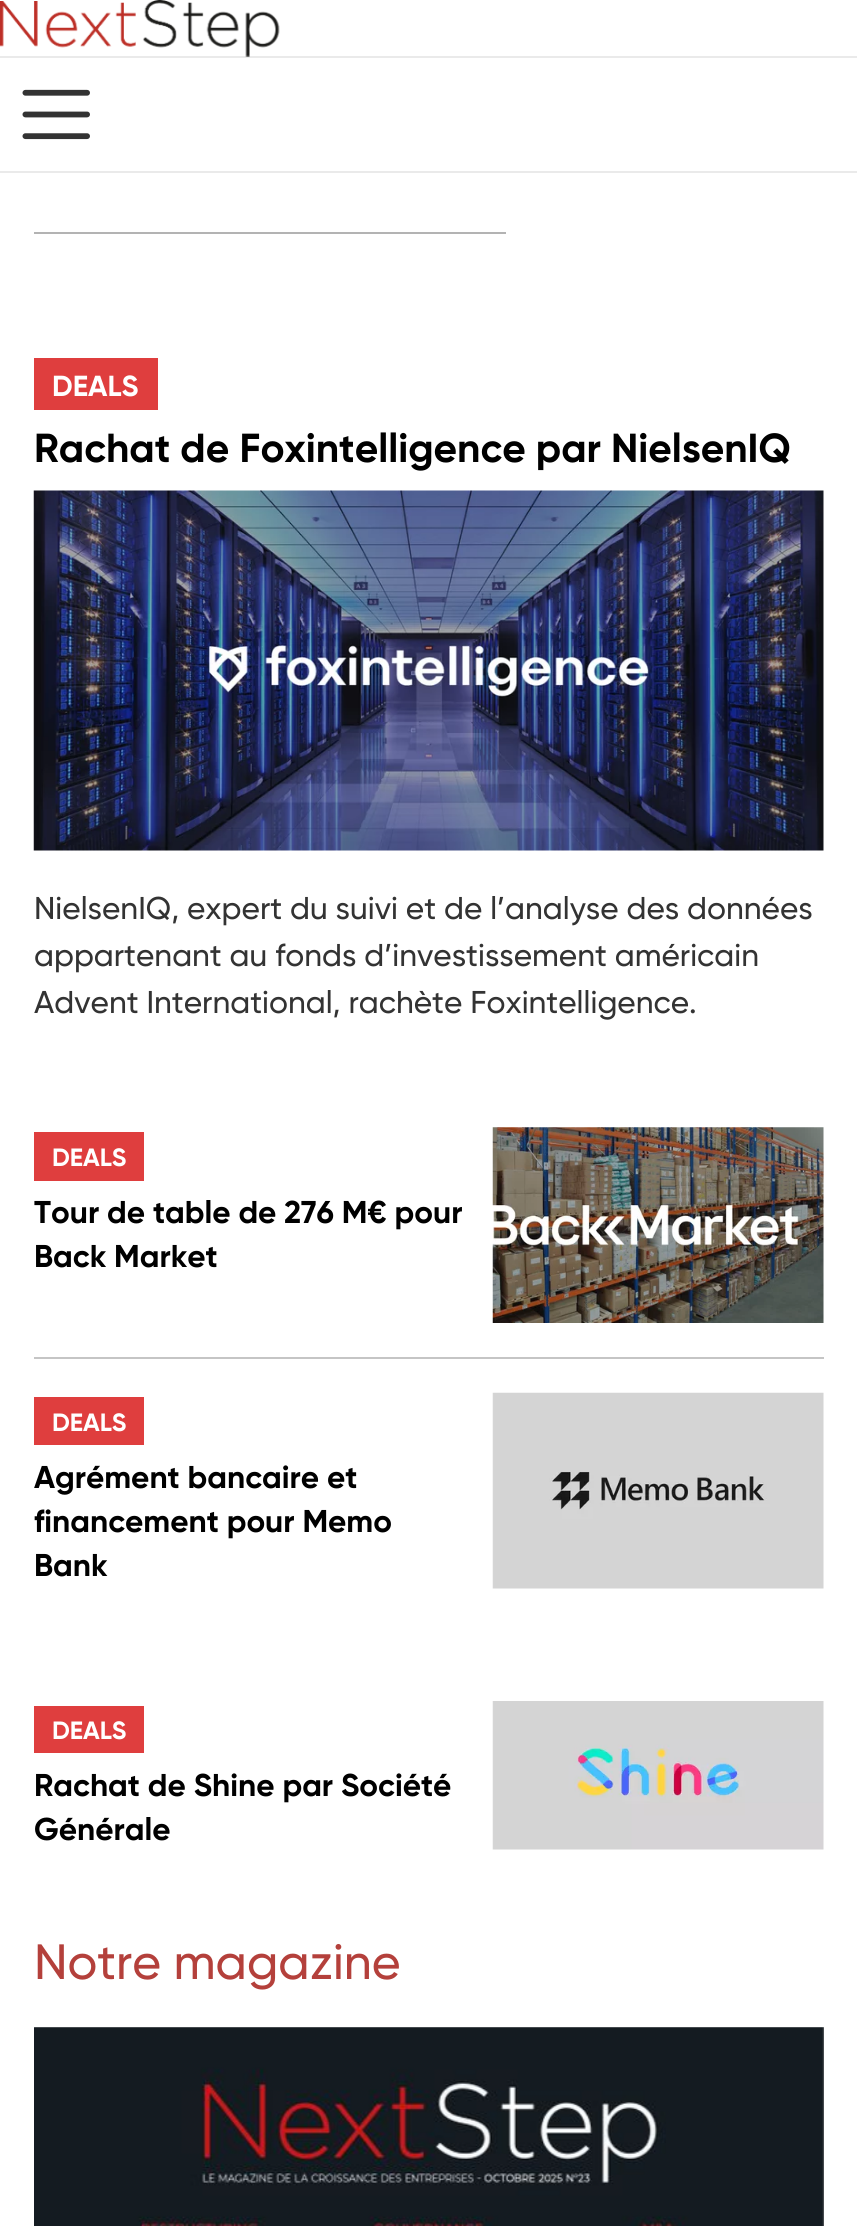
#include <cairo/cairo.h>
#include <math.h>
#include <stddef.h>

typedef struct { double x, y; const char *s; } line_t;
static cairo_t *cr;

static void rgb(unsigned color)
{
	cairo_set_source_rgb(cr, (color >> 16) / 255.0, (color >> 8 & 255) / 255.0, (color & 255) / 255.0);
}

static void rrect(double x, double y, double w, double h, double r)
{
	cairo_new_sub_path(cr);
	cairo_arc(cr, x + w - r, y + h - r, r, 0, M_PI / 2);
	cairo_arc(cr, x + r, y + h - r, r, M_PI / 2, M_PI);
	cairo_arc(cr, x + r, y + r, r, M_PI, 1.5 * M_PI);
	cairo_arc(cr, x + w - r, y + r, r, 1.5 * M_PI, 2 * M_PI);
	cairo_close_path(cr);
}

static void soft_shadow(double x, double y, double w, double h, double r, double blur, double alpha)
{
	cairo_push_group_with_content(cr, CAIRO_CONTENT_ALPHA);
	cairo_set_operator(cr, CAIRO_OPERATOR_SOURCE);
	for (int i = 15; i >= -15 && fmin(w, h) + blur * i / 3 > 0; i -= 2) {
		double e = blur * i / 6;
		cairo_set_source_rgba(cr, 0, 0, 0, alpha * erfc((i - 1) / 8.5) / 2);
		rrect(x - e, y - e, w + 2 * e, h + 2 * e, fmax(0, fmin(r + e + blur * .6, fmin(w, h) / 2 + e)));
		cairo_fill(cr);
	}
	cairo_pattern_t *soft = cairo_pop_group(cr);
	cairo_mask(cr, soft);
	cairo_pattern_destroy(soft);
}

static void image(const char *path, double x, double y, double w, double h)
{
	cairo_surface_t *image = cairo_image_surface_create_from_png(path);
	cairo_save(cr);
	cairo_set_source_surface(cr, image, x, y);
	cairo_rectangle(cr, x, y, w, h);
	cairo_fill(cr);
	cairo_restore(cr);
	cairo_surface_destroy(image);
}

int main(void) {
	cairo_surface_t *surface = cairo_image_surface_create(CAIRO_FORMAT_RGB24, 857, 2226);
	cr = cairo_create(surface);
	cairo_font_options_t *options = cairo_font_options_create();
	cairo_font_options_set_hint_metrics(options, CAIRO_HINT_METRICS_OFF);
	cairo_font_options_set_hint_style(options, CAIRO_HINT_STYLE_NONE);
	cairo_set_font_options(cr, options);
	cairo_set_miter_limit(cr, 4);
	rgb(0xffffff);
	cairo_paint(cr);
	rgb(0xeaeaea);
	cairo_rectangle(cr, 0, 171, 857, 2);
	cairo_fill(cr);
	cairo_rectangle(cr, 0, 56, 857, 2);
	cairo_fill(cr);
	image("img/1.png", 0, 0, 280, 57);
	image("img/2.png", 22, 89, 68, 51);
	rgb(0xb3b3b3);
	cairo_rectangle(cr, 34, 232, 472, 2);
	cairo_fill(cr);
	rgb(0xdf3e3e);
	cairo_rectangle(cr, 34, 358, 124, 52);
	cairo_fill(cr);
	image("img/3.png", 33, 490, 791, 361);
	cairo_rectangle(cr, 34, 1132, 110, 49);
	cairo_fill(cr);
	image("img/4.png", 492, 1127, 332, 196);
	rgb(0xc5c5c5);
	cairo_rectangle(cr, 34, 1357, 790, 2);
	cairo_fill(cr);
	rgb(0xdf3e3e);
	cairo_rectangle(cr, 34, 1397, 110, 48);
	cairo_fill(cr);
	image("img/5.png", 492, 1392, 332, 197);
	cairo_rectangle(cr, 34, 1706, 110, 47);
	cairo_fill(cr);
	image("img/6.png", 492, 1701, 332, 149);
	cairo_save(cr);
	cairo_rectangle(cr, 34, 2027, 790, 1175);
	cairo_clip(cr);
	rgb(0x000000);
	soft_shadow(34, 2027, 790, 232, 0, 11, 0.3);
	cairo_restore(cr);
	image("img/7.png", 34, 2027, 790, 199);
	cairo_select_font_face(cr, "Gilroy", CAIRO_FONT_SLANT_NORMAL, CAIRO_FONT_WEIGHT_BOLD);
	cairo_set_font_size(cr, 29);
	rgb(0xffffff);
	cairo_move_to(cr, 52, 396);
	cairo_show_text(cr, "DEALS");
	cairo_set_font_size(cr, 40.5);
	rgb(0x000000);
	cairo_move_to(cr, 34, 462);
	cairo_show_text(cr, "Rachat de Foxintelligence par NielsenIQ");
	cairo_select_font_face(cr, "Gilroy Medium", CAIRO_FONT_SLANT_NORMAL, CAIRO_FONT_WEIGHT_NORMAL);
	cairo_set_font_size(cr, 31.5);
	rgb(0x333333);
	{
		static const line_t items[] = {
			{34, 919, "NielsenIQ, expert du suivi et de l’analyse des données"},
			{34, 966, "appartenant au fonds d’investissement américain"},
			{34, 1013, "Advent International, rachète Foxintelligence."},
		};
		for (size_t i = 0; i < sizeof items / sizeof *items; i++) {
			cairo_move_to(cr, items[i].x, items[i].y);
			cairo_show_text(cr, items[i].s);
		}
	}
	cairo_select_font_face(cr, "Gilroy", CAIRO_FONT_SLANT_NORMAL, CAIRO_FONT_WEIGHT_BOLD);
	cairo_set_font_size(cr, 25);
	rgb(0xffffff);
	cairo_move_to(cr, 52, 1166);
	cairo_show_text(cr, "DEALS");
	cairo_set_font_size(cr, 31.5);
	rgb(0x000000);
	cairo_move_to(cr, 34, 1223);
	cairo_show_text(cr, "Tour de table de 276 M€ pour");
	cairo_move_to(cr, 34, 1267);
	cairo_show_text(cr, "Back Market");
	cairo_set_font_size(cr, 25);
	rgb(0xffffff);
	cairo_move_to(cr, 52, 1431);
	cairo_show_text(cr, "DEALS");
	cairo_set_font_size(cr, 31.5);
	rgb(0x000000);
	{
		static const line_t items[] = {
			{34, 1488, "Agrément bancaire et"},
			{34, 1532, "financement pour Memo"},
			{34, 1576, "Bank"},
		};
		for (size_t i = 0; i < sizeof items / sizeof *items; i++) {
			cairo_move_to(cr, items[i].x, items[i].y);
			cairo_show_text(cr, items[i].s);
		}
	}
	cairo_set_font_size(cr, 25);
	rgb(0xffffff);
	cairo_move_to(cr, 52, 1739);
	cairo_show_text(cr, "DEALS");
	cairo_set_font_size(cr, 31.5);
	rgb(0x000000);
	cairo_move_to(cr, 34, 1796);
	cairo_show_text(cr, "Rachat de Shine par Société");
	cairo_move_to(cr, 34, 1840);
	cairo_show_text(cr, "Générale");
	cairo_select_font_face(cr, "Gilroy Medium", CAIRO_FONT_SLANT_NORMAL, CAIRO_FONT_WEIGHT_NORMAL);
	cairo_set_font_size(cr, 49.5);
	rgb(0xb4403b);
	cairo_move_to(cr, 34, 1979);
	cairo_show_text(cr, "Notre magazine");
	cairo_surface_write_to_png(surface, "page.png");
	cairo_font_options_destroy(options);
	cairo_destroy(cr);
	cairo_surface_destroy(surface);
	return 0;
}
